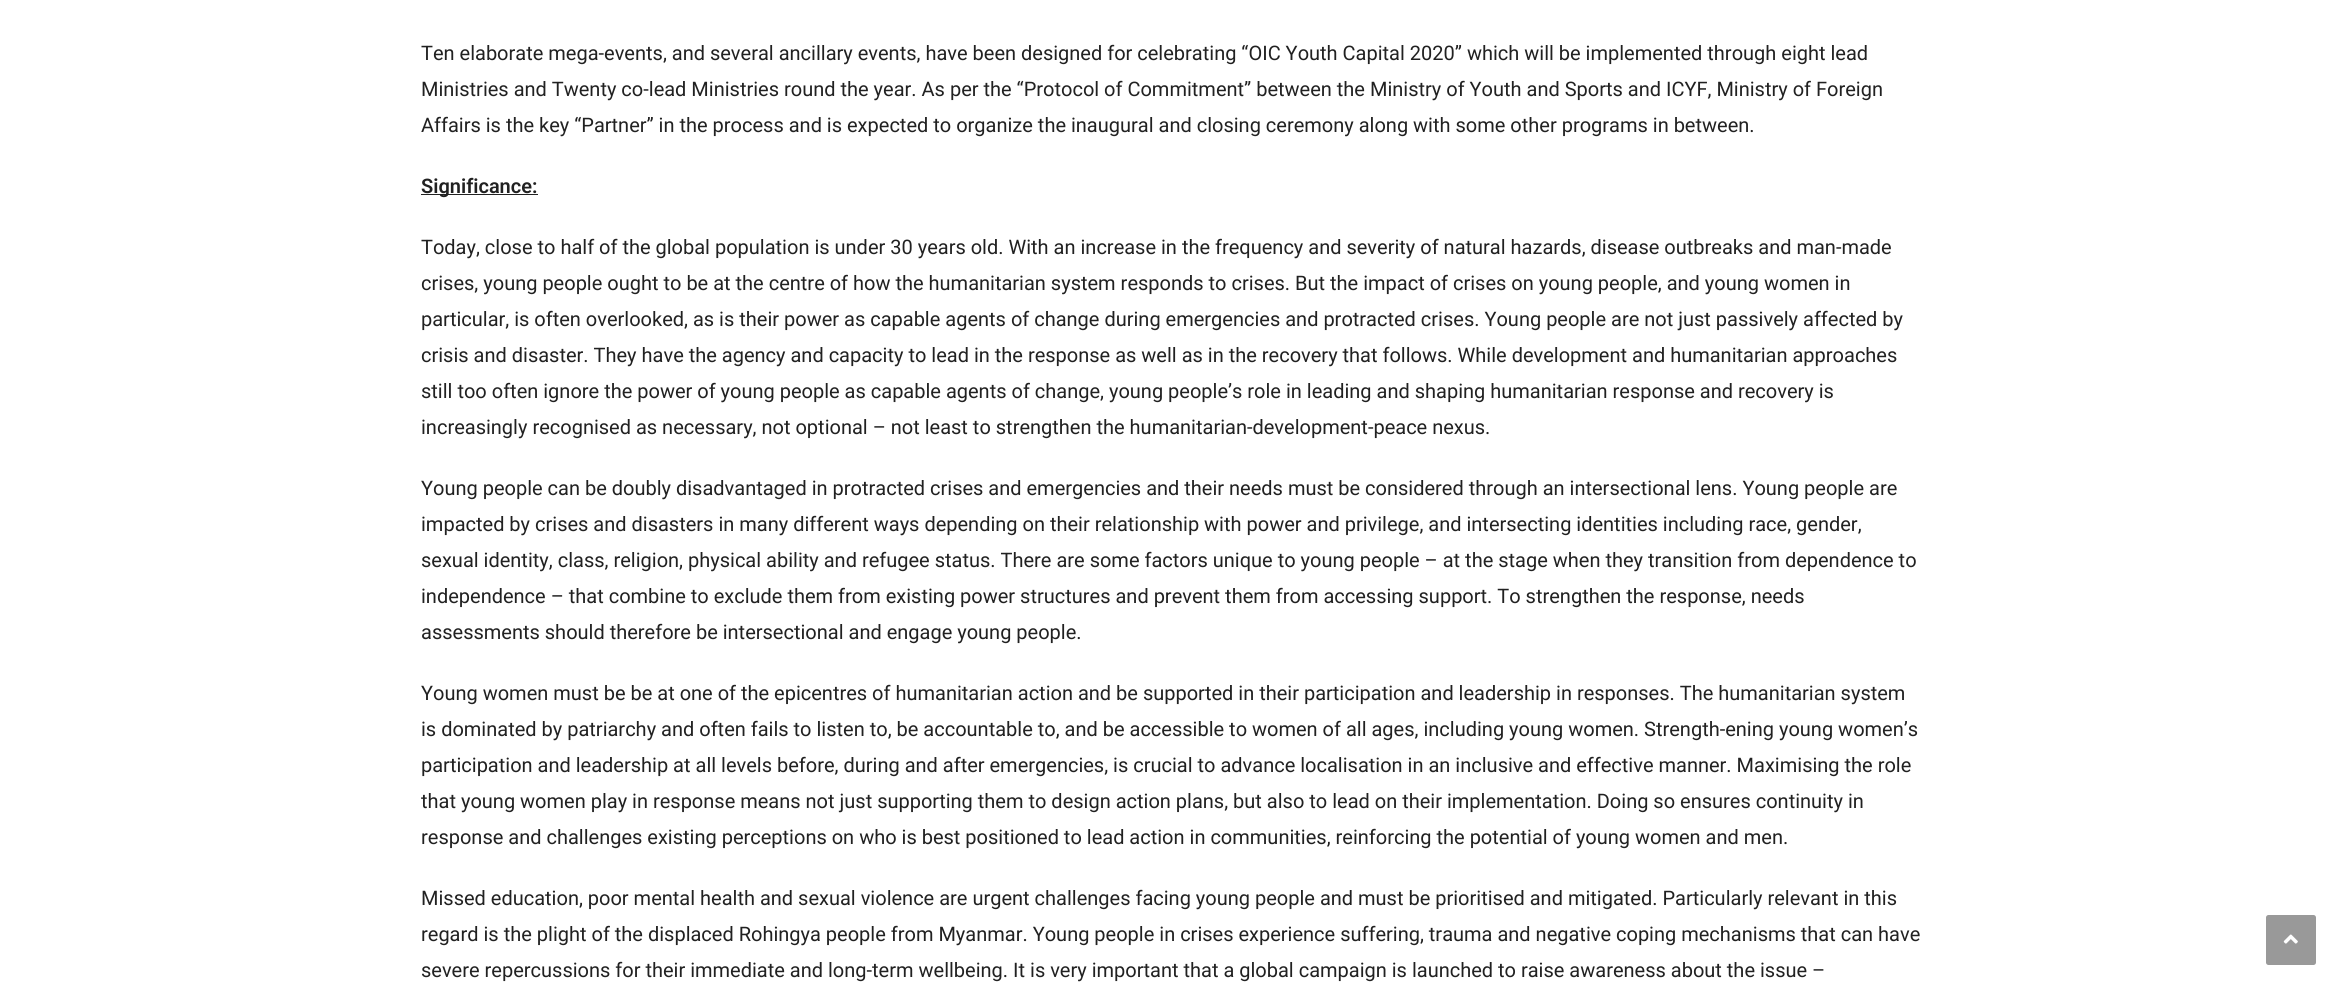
#include <cairo/cairo.h>
#include <math.h>
#include <stddef.h>

typedef struct { double x, y; const char *s; } line_t;
static cairo_t *cr;

static void rgb(unsigned color)
{
	cairo_set_source_rgb(cr, (color >> 16) / 255.0, (color >> 8 & 255) / 255.0, (color & 255) / 255.0);
}

static void rrect(double x, double y, double w, double h, double r)
{
	cairo_new_sub_path(cr);
	cairo_arc(cr, x + w - r, y + h - r, r, 0, M_PI / 2);
	cairo_arc(cr, x + r, y + h - r, r, M_PI / 2, M_PI);
	cairo_arc(cr, x + r, y + r, r, M_PI, 1.5 * M_PI);
	cairo_arc(cr, x + w - r, y + r, r, 1.5 * M_PI, 2 * M_PI);
	cairo_close_path(cr);
}

static void image(const char *path, double x, double y, double w, double h)
{
	cairo_surface_t *image = cairo_image_surface_create_from_png(path);
	cairo_save(cr);
	cairo_set_source_surface(cr, image, x, y);
	cairo_rectangle(cr, x, y, w, h);
	cairo_fill(cr);
	cairo_restore(cr);
	cairo_surface_destroy(image);
}

int main(void) {
	cairo_surface_t *surface = cairo_image_surface_create(CAIRO_FORMAT_RGB24, 2341, 990);
	cr = cairo_create(surface);
	cairo_font_options_t *options = cairo_font_options_create();
	cairo_font_options_set_hint_metrics(options, CAIRO_HINT_METRICS_OFF);
	cairo_font_options_set_hint_style(options, CAIRO_HINT_STYLE_NONE);
	cairo_set_font_options(cr, options);
	cairo_set_miter_limit(cr, 4);
	rgb(0xffffff);
	cairo_paint(cr);
	rgb(0x212121);
	cairo_rectangle(cr, 421, 194, 117, 1);
	cairo_fill(cr);
	rgb(0x999999);
	rrect(2266, 915, 50, 50, 2.5);
	cairo_fill(cr);
	image("img/1.png", 2283, 934, 15, 10);
	cairo_select_font_face(cr, "Roboto", CAIRO_FONT_SLANT_NORMAL, CAIRO_FONT_WEIGHT_NORMAL);
	cairo_set_font_size(cr, 20);
	rgb(0x212121);
	{
		static const line_t items[] = {
			{421, 60, "Ten elaborate mega-events, and several ancillary events, have been designed for celebrating “OIC Youth Capital 2020” which will be implemented through eight lead"},
			{421, 96, "Ministries and Twenty co-lead Ministries round the year. As per the “Protocol of Commitment” between the Ministry of Youth and Sports and ICYF, Ministry of Foreign"},
			{421, 132, "Affairs is the key “Partner” in the process and is expected to organize the inaugural and closing ceremony along with some other programs in between."},
		};
		for (size_t i = 0; i < sizeof items / sizeof *items; i++) {
			cairo_move_to(cr, items[i].x, items[i].y);
			cairo_show_text(cr, items[i].s);
		}
	}
	cairo_select_font_face(cr, "Roboto SemiBold", CAIRO_FONT_SLANT_NORMAL, CAIRO_FONT_WEIGHT_NORMAL);
	cairo_move_to(cr, 421, 193);
	cairo_show_text(cr, "Significance:");
	cairo_select_font_face(cr, "Roboto", CAIRO_FONT_SLANT_NORMAL, CAIRO_FONT_WEIGHT_NORMAL);
	{
		static const line_t items[] = {
			{421, 254, "Today, close to half of the global population is under 30 years old. With an increase in the frequency and severity of natural hazards, disease outbreaks and man-made"},
			{421, 290, "crises, young people ought to be at the centre of how the humanitarian system responds to crises. But the impact of crises on young people, and young women in"},
			{421, 326, "particular, is often overlooked, as is their power as capable agents of change during emergencies and protracted crises. Young people are not just passively affected by"},
			{421, 362, "crisis and disaster. They have the agency and capacity to lead in the response as well as in the recovery that follows. While development and humanitarian approaches"},
			{421, 398, "still too often ignore the power of young people as capable agents of change, young people’s role in leading and shaping humanitarian response and recovery is"},
			{421, 434, "increasingly recognised as necessary, not optional – not least to strengthen the humanitarian-development-peace nexus."},
			{421, 495, "Young people can be doubly disadvantaged in protracted crises and emergencies and their needs must be considered through an intersectional lens. Young people are"},
			{421, 531, "impacted by crises and disasters in many different ways depending on their relationship with power and privilege, and intersecting identities including race, gender,"},
			{421, 567, "sexual identity, class, religion, physical ability and refugee status. There are some factors unique to young people – at the stage when they transition from dependence to"},
			{421, 603, "independence – that combine to exclude them from existing power structures and prevent them from accessing support. To strengthen the response, needs"},
			{421, 639, "assessments should therefore be intersectional and engage young people."},
			{421, 700, "Young women must be be at one of the epicentres of humanitarian action and be supported in their participation and leadership in responses. The humanitarian system"},
			{421, 736, "is dominated by patriarchy and often fails to listen to, be accountable to, and be accessible to women of all ages, including young women. Strength-ening young women’s"},
			{421, 772, "participation and leadership at all levels before, during and after emergencies, is crucial to advance localisation in an inclusive and effective manner. Maximising the role"},
			{421, 808, "that young women play in response means not just supporting them to design action plans, but also to lead on their implementation. Doing so ensures continuity in"},
			{421, 844, "response and challenges existing perceptions on who is best positioned to lead action in communities, reinforcing the potential of young women and men."},
			{421, 905, "Missed education, poor mental health and sexual violence are urgent challenges facing young people and must be prioritised and mitigated. Particularly relevant in this"},
			{421, 941, "regard is the plight of the displaced Rohingya people from Myanmar. Young people in crises experience suffering, trauma and negative coping mechanisms that can have"},
			{421, 977, "severe repercussions for their immediate and long-term wellbeing. It is very important that a global campaign is launched to raise awareness about the issue –"},
		};
		for (size_t i = 0; i < sizeof items / sizeof *items; i++) {
			cairo_move_to(cr, items[i].x, items[i].y);
			cairo_show_text(cr, items[i].s);
		}
	}
	cairo_surface_write_to_png(surface, "page.png");
	cairo_font_options_destroy(options);
	cairo_destroy(cr);
	cairo_surface_destroy(surface);
	return 0;
}
